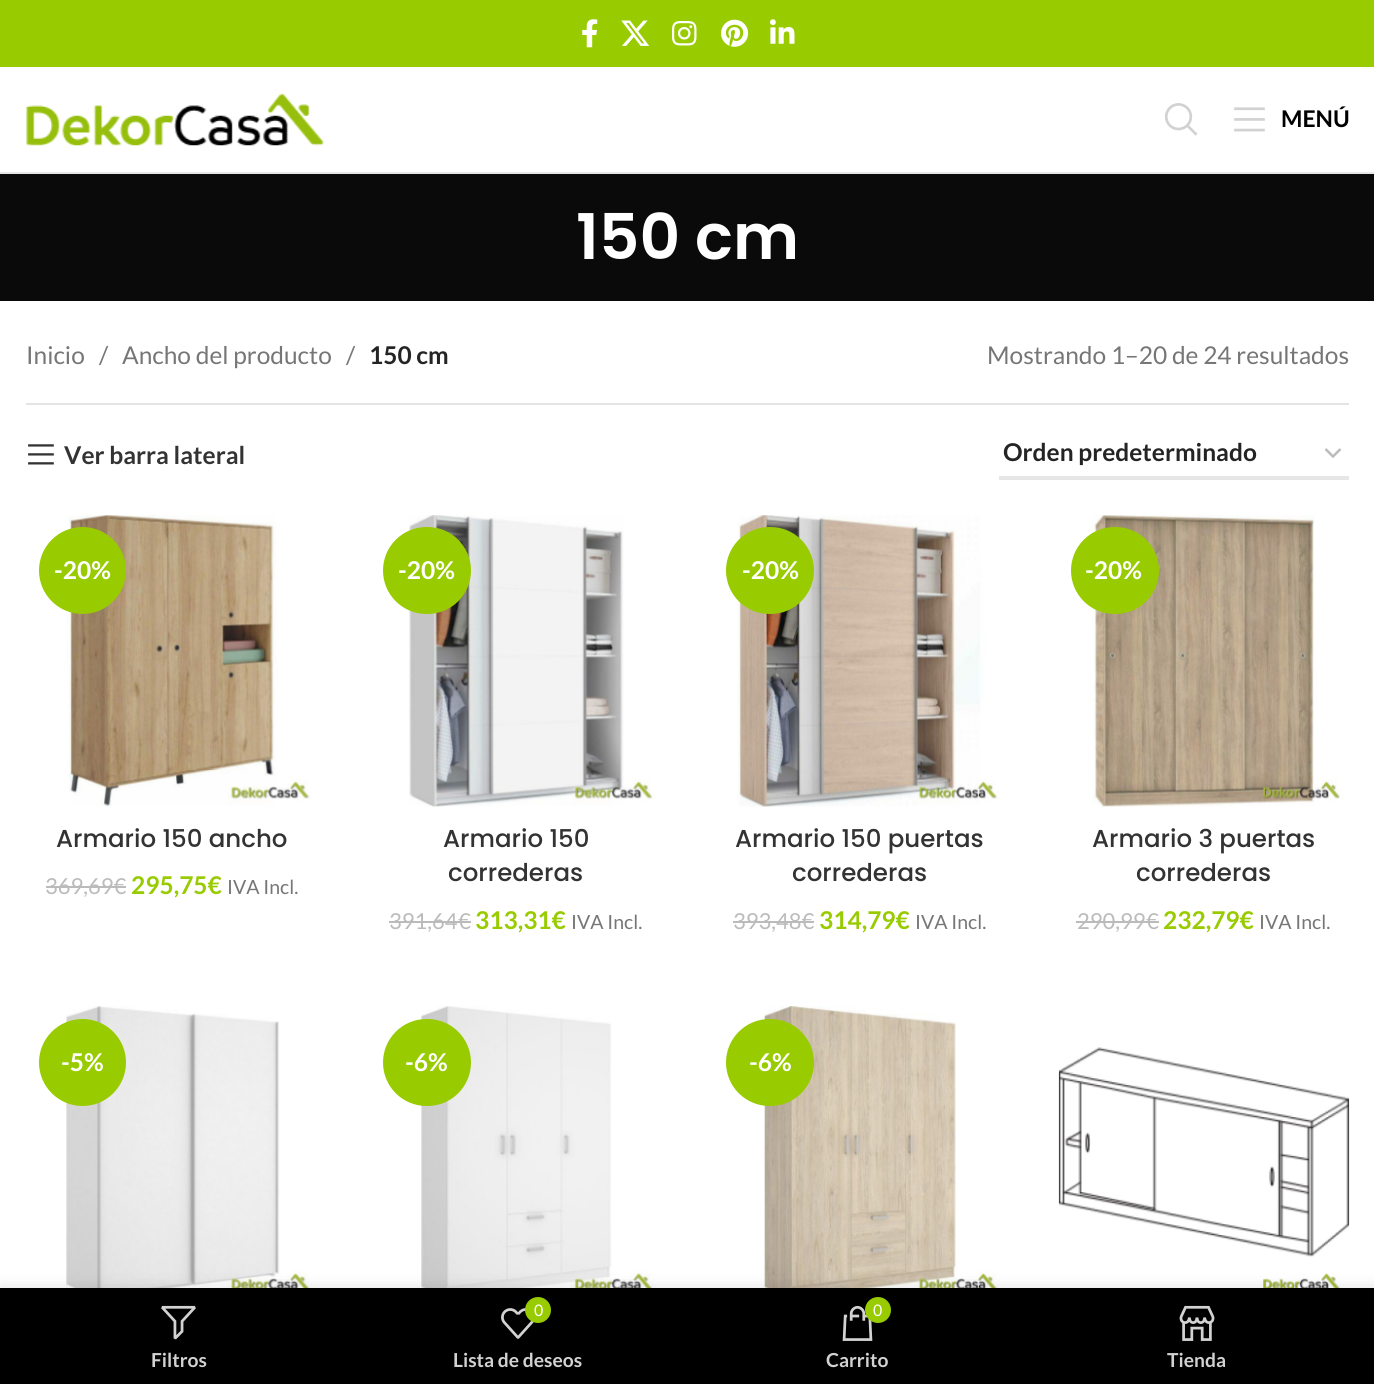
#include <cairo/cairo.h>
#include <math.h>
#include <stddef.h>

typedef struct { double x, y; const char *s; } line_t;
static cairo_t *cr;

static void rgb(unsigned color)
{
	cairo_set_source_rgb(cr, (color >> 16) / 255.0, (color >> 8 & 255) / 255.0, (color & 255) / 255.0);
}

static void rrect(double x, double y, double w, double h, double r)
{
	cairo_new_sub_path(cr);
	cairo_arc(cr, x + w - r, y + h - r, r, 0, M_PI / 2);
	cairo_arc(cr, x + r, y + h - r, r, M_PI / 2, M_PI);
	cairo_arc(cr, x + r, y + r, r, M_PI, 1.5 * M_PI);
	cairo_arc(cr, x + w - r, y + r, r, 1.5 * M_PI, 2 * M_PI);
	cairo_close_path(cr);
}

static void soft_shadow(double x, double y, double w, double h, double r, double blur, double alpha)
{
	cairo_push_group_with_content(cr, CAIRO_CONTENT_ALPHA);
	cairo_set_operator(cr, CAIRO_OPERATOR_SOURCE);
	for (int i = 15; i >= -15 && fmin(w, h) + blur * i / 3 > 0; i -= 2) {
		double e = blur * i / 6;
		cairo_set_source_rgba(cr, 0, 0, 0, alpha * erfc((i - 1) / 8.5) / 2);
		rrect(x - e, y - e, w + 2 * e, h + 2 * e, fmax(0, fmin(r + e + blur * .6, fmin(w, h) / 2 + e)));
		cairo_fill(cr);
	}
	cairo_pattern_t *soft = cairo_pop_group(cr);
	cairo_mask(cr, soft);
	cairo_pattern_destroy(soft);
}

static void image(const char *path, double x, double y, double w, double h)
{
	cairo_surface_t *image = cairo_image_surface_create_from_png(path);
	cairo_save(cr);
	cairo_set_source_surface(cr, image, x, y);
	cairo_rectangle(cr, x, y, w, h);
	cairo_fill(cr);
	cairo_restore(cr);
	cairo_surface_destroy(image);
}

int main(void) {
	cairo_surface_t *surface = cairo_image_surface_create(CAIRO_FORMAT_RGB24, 1374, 1384);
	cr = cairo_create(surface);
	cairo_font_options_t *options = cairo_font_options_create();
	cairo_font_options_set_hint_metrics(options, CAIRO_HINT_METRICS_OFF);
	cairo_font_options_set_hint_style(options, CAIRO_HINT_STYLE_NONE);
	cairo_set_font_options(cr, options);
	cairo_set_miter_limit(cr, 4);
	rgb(0xffffff);
	cairo_paint(cr);
	rgb(0x98cb00);
	cairo_rectangle(cr, 0, 0, 1374, 67);
	cairo_fill(cr);
	image("img/1.png", 582, 19, 16, 29);
	image("img/2.png", 621, 20, 29, 26);
	image("img/3.png", 672, 21, 25, 25);
	image("img/4.png", 721, 19, 28, 28);
	image("img/5.png", 770, 19, 25, 25);
	rgb(0xe8e8e8);
	cairo_rectangle(cr, 0, 172, 1374, 2);
	cairo_fill(cr);
	image("img/6.png", 26, 93, 299, 53);
	image("img/7.png", 1164, 103, 34, 33);
	image("img/8.png", 1234, 107, 31, 25);
	rgb(0x0a0a0a);
	cairo_rectangle(cr, 0, 174, 1374, 127);
	cairo_fill(cr);
	rgb(0xe4e4e4);
	cairo_rectangle(cr, 26, 403, 1323, 2);
	cairo_fill(cr);
	image("img/9.png", 28, 444, 26, 21);
	cairo_new_path(cr);
	cairo_move_to(cr, 1325.5, 449);
	cairo_line_to(cr, 1333, 456.5);
	cairo_line_to(cr, 1340.5, 449);
	rgb(0xbbbbbb);
	cairo_set_line_width(cr, 2.5);
	cairo_stroke(cr);
	rgb(0xe6e6e6);
	cairo_rectangle(cr, 999, 476, 350, 4);
	cairo_fill(cr);
	image("img/10.png", 67, 515, 247, 292);
	rgb(0x98cb00);
	cairo_arc(cr, 82.5, 570.5, 43.5, 0, 2 * M_PI);
	cairo_fill(cr);
	rgb(0xbbbbbb);
	cairo_rectangle(cr, 46, 886, 80, 2);
	cairo_fill(cr);
	image("img/11.png", 409, 515, 248, 292);
	rgb(0x98cb00);
	rrect(383, 527, 88, 87, 43.5);
	cairo_fill(cr);
	rgb(0xbbbbbb);
	cairo_rectangle(cr, 389, 921, 70, 2);
	cairo_fill(cr);
	cairo_rectangle(cr, 459, 921, 12, 2);
	cairo_fill(cr);
	image("img/12.png", 737, 515, 265, 292);
	rgb(0x98cb00);
	rrect(726, 527, 88, 87, 43.5);
	cairo_fill(cr);
	rgb(0xbbbbbb);
	cairo_rectangle(cr, 733, 921, 81, 2);
	cairo_fill(cr);
	image("img/13.png", 1090, 515, 255, 292);
	rgb(0x98cb00);
	rrect(1071, 527, 88, 87, 43.5);
	cairo_fill(cr);
	rgb(0xbbbbbb);
	cairo_rectangle(cr, 1076, 921, 70, 2);
	cairo_fill(cr);
	cairo_rectangle(cr, 1146, 921, 13, 2);
	cairo_fill(cr);
	image("img/14.png", 66, 1006, 248, 282);
	rgb(0x98cb00);
	cairo_arc(cr, 82.5, 1062.5, 43.5, 0, 2 * M_PI);
	cairo_fill(cr);
	image("img/15.png", 421, 1006, 236, 282);
	rrect(383, 1019, 88, 87, 43.5);
	cairo_fill(cr);
	image("img/16.png", 763, 1006, 239, 282);
	rrect(726, 1019, 88, 87, 43.5);
	cairo_fill(cr);
	image("img/17.png", 1058, 1047, 292, 241);
	rgb(0x000000);
	soft_shadow(0, 1288, 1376, 96, 0, 8, 0.12);
	rgb(0x000000);
	cairo_rectangle(cr, 0, 1288, 1374, 96);
	cairo_fill(cr);
	image("img/18.png", 161, 1305, 35, 35);
	image("img/19.png", 501, 1308, 33, 31);
	rgb(0x98cb00);
	cairo_arc(cr, 538, 1310, 13, 0, 2 * M_PI);
	cairo_fill(cr);
	image("img/20.png", 842, 1305, 31, 36);
	cairo_arc(cr, 878, 1310, 13, 0, 2 * M_PI);
	cairo_fill(cr);
	image("img/21.png", 1179, 1305, 36, 36);
	cairo_select_font_face(cr, "Lato", CAIRO_FONT_SLANT_NORMAL, CAIRO_FONT_WEIGHT_BOLD);
	cairo_set_font_size(cr, 23);
	rgb(0x000000);
	cairo_move_to(cr, 1281, 127);
	cairo_show_text(cr, "MENÚ");
	cairo_select_font_face(cr, "Poppins SemiBold", CAIRO_FONT_SLANT_NORMAL, CAIRO_FONT_WEIGHT_NORMAL);
	cairo_set_font_size(cr, 63);
	rgb(0xffffff);
	cairo_move_to(cr, 576, 259);
	cairo_show_text(cr, "150 cm");
	cairo_select_font_face(cr, "Lato", CAIRO_FONT_SLANT_NORMAL, CAIRO_FONT_WEIGHT_NORMAL);
	cairo_set_font_size(cr, 24.5);
	rgb(0x767676);
	{
		static const line_t items[] = {
			{26, 364, "Inicio"},
			{99, 364, "/"},
			{122, 364, "Ancho del producto"},
			{346, 364, "/"},
		};
		for (size_t i = 0; i < sizeof items / sizeof *items; i++) {
			cairo_move_to(cr, items[i].x, items[i].y);
			cairo_show_text(cr, items[i].s);
		}
	}
	cairo_select_font_face(cr, "Lato", CAIRO_FONT_SLANT_NORMAL, CAIRO_FONT_WEIGHT_BOLD);
	rgb(0x242424);
	cairo_move_to(cr, 369, 364);
	cairo_show_text(cr, "150 cm");
	cairo_select_font_face(cr, "Lato", CAIRO_FONT_SLANT_NORMAL, CAIRO_FONT_WEIGHT_NORMAL);
	rgb(0x767676);
	cairo_move_to(cr, 987, 364);
	cairo_show_text(cr, "Mostrando 1–20 de 24 resultados");
	cairo_select_font_face(cr, "Lato", CAIRO_FONT_SLANT_NORMAL, CAIRO_FONT_WEIGHT_BOLD);
	rgb(0x333333);
	cairo_move_to(cr, 64, 464);
	cairo_show_text(cr, "Ver barra lateral");
	rgb(0x242424);
	cairo_move_to(cr, 1003, 461);
	cairo_show_text(cr, "Orden predeterminado");
	rgb(0xffffff);
	cairo_move_to(cr, 54, 579);
	cairo_show_text(cr, "-20%");
	cairo_select_font_face(cr, "Poppins Medium", CAIRO_FONT_SLANT_NORMAL, CAIRO_FONT_WEIGHT_NORMAL);
	rgb(0x333333);
	cairo_move_to(cr, 56, 847);
	cairo_show_text(cr, "Armario 150 ancho");
	cairo_select_font_face(cr, "Lato", CAIRO_FONT_SLANT_NORMAL, CAIRO_FONT_WEIGHT_NORMAL);
	cairo_set_font_size(cr, 22);
	rgb(0xbbbbbb);
	cairo_move_to(cr, 45, 894);
	cairo_show_text(cr, "369,69€");
	cairo_select_font_face(cr, "Lato", CAIRO_FONT_SLANT_NORMAL, CAIRO_FONT_WEIGHT_BOLD);
	cairo_set_font_size(cr, 24.5);
	rgb(0x98cb00);
	cairo_move_to(cr, 131, 894);
	cairo_show_text(cr, "295,75€");
	cairo_select_font_face(cr, "Lato", CAIRO_FONT_SLANT_NORMAL, CAIRO_FONT_WEIGHT_NORMAL);
	cairo_set_font_size(cr, 19.5);
	rgb(0x767676);
	cairo_move_to(cr, 227, 894);
	cairo_show_text(cr, "IVA Incl.");
	cairo_select_font_face(cr, "Lato", CAIRO_FONT_SLANT_NORMAL, CAIRO_FONT_WEIGHT_BOLD);
	cairo_set_font_size(cr, 24.5);
	rgb(0xffffff);
	cairo_move_to(cr, 398, 579);
	cairo_show_text(cr, "-20%");
	cairo_select_font_face(cr, "Poppins Medium", CAIRO_FONT_SLANT_NORMAL, CAIRO_FONT_WEIGHT_NORMAL);
	rgb(0x333333);
	cairo_move_to(cr, 443, 847);
	cairo_show_text(cr, "Armario 150");
	cairo_move_to(cr, 448, 881);
	cairo_show_text(cr, "correderas");
	cairo_select_font_face(cr, "Lato", CAIRO_FONT_SLANT_NORMAL, CAIRO_FONT_WEIGHT_NORMAL);
	cairo_set_font_size(cr, 22);
	rgb(0xbbbbbb);
	cairo_move_to(cr, 389, 929);
	cairo_show_text(cr, "391,64");
	cairo_move_to(cr, 458, 929);
	cairo_show_text(cr, "€");
	cairo_select_font_face(cr, "Lato", CAIRO_FONT_SLANT_NORMAL, CAIRO_FONT_WEIGHT_BOLD);
	cairo_set_font_size(cr, 24.5);
	rgb(0x98cb00);
	cairo_move_to(cr, 475, 929);
	cairo_show_text(cr, "313,31€");
	cairo_select_font_face(cr, "Lato", CAIRO_FONT_SLANT_NORMAL, CAIRO_FONT_WEIGHT_NORMAL);
	cairo_set_font_size(cr, 19.5);
	rgb(0x767676);
	cairo_move_to(cr, 571, 929);
	cairo_show_text(cr, "IVA Incl.");
	cairo_select_font_face(cr, "Lato", CAIRO_FONT_SLANT_NORMAL, CAIRO_FONT_WEIGHT_BOLD);
	cairo_set_font_size(cr, 24.5);
	rgb(0xffffff);
	cairo_move_to(cr, 742, 579);
	cairo_show_text(cr, "-20%");
	cairo_select_font_face(cr, "Poppins Medium", CAIRO_FONT_SLANT_NORMAL, CAIRO_FONT_WEIGHT_NORMAL);
	rgb(0x333333);
	cairo_move_to(cr, 735, 847);
	cairo_show_text(cr, "Armario 150 puertas");
	cairo_move_to(cr, 792, 881);
	cairo_show_text(cr, "correderas");
	cairo_select_font_face(cr, "Lato", CAIRO_FONT_SLANT_NORMAL, CAIRO_FONT_WEIGHT_NORMAL);
	cairo_set_font_size(cr, 22);
	rgb(0xbbbbbb);
	cairo_move_to(cr, 733, 929);
	cairo_show_text(cr, "393,48€");
	cairo_select_font_face(cr, "Lato", CAIRO_FONT_SLANT_NORMAL, CAIRO_FONT_WEIGHT_BOLD);
	cairo_set_font_size(cr, 24.5);
	rgb(0x98cb00);
	cairo_move_to(cr, 819, 929);
	cairo_show_text(cr, "314,79€");
	cairo_select_font_face(cr, "Lato", CAIRO_FONT_SLANT_NORMAL, CAIRO_FONT_WEIGHT_NORMAL);
	cairo_set_font_size(cr, 19.5);
	rgb(0x767676);
	cairo_move_to(cr, 915, 929);
	cairo_show_text(cr, "IVA Incl.");
	cairo_select_font_face(cr, "Lato", CAIRO_FONT_SLANT_NORMAL, CAIRO_FONT_WEIGHT_BOLD);
	cairo_set_font_size(cr, 24.5);
	rgb(0xffffff);
	cairo_move_to(cr, 1085, 579);
	cairo_show_text(cr, "-20%");
	cairo_select_font_face(cr, "Poppins Medium", CAIRO_FONT_SLANT_NORMAL, CAIRO_FONT_WEIGHT_NORMAL);
	rgb(0x333333);
	cairo_move_to(cr, 1092, 847);
	cairo_show_text(cr, "Armario 3 puertas");
	cairo_move_to(cr, 1136, 881);
	cairo_show_text(cr, "correderas");
	cairo_select_font_face(cr, "Lato", CAIRO_FONT_SLANT_NORMAL, CAIRO_FONT_WEIGHT_NORMAL);
	cairo_set_font_size(cr, 22);
	rgb(0xbbbbbb);
	cairo_move_to(cr, 1077, 929);
	cairo_show_text(cr, "290,99");
	cairo_move_to(cr, 1146, 929);
	cairo_show_text(cr, "€");
	cairo_select_font_face(cr, "Lato", CAIRO_FONT_SLANT_NORMAL, CAIRO_FONT_WEIGHT_BOLD);
	cairo_set_font_size(cr, 24.5);
	rgb(0x98cb00);
	cairo_move_to(cr, 1163, 929);
	cairo_show_text(cr, "232,79€");
	cairo_select_font_face(cr, "Lato", CAIRO_FONT_SLANT_NORMAL, CAIRO_FONT_WEIGHT_NORMAL);
	cairo_set_font_size(cr, 19.5);
	rgb(0x767676);
	cairo_move_to(cr, 1259, 929);
	cairo_show_text(cr, "IVA Incl.");
	cairo_select_font_face(cr, "Lato", CAIRO_FONT_SLANT_NORMAL, CAIRO_FONT_WEIGHT_BOLD);
	cairo_set_font_size(cr, 24.5);
	rgb(0xffffff);
	{
		static const line_t items[] = {
			{61, 1071, "-5%"},
			{405, 1071, "-6%"},
			{749, 1071, "-6%"},
		};
		for (size_t i = 0; i < sizeof items / sizeof *items; i++) {
			cairo_move_to(cr, items[i].x, items[i].y);
			cairo_show_text(cr, items[i].s);
		}
	}
	cairo_set_font_size(cr, 19.25);
	rgb(0xd2d2d2);
	cairo_move_to(cr, 151, 1367);
	cairo_show_text(cr, "Filtros");
	cairo_select_font_face(cr, "Lato", CAIRO_FONT_SLANT_NORMAL, CAIRO_FONT_WEIGHT_NORMAL);
	cairo_set_font_size(cr, 16);
	rgb(0xffffff);
	cairo_move_to(cr, 534, 1316);
	cairo_show_text(cr, "0");
	cairo_select_font_face(cr, "Lato", CAIRO_FONT_SLANT_NORMAL, CAIRO_FONT_WEIGHT_BOLD);
	cairo_set_font_size(cr, 19.25);
	rgb(0xd2d2d2);
	cairo_move_to(cr, 453, 1367);
	cairo_show_text(cr, "Lista de deseos");
	cairo_select_font_face(cr, "Lato", CAIRO_FONT_SLANT_NORMAL, CAIRO_FONT_WEIGHT_NORMAL);
	cairo_set_font_size(cr, 16);
	rgb(0xffffff);
	cairo_move_to(cr, 873, 1316);
	cairo_show_text(cr, "0");
	cairo_select_font_face(cr, "Lato", CAIRO_FONT_SLANT_NORMAL, CAIRO_FONT_WEIGHT_BOLD);
	cairo_set_font_size(cr, 19.25);
	rgb(0xd2d2d2);
	cairo_move_to(cr, 826, 1367);
	cairo_show_text(cr, "Carrito");
	cairo_move_to(cr, 1167, 1367);
	cairo_show_text(cr, "Tienda");
	cairo_surface_write_to_png(surface, "page.png");
	cairo_font_options_destroy(options);
	cairo_destroy(cr);
	cairo_surface_destroy(surface);
	return 0;
}
